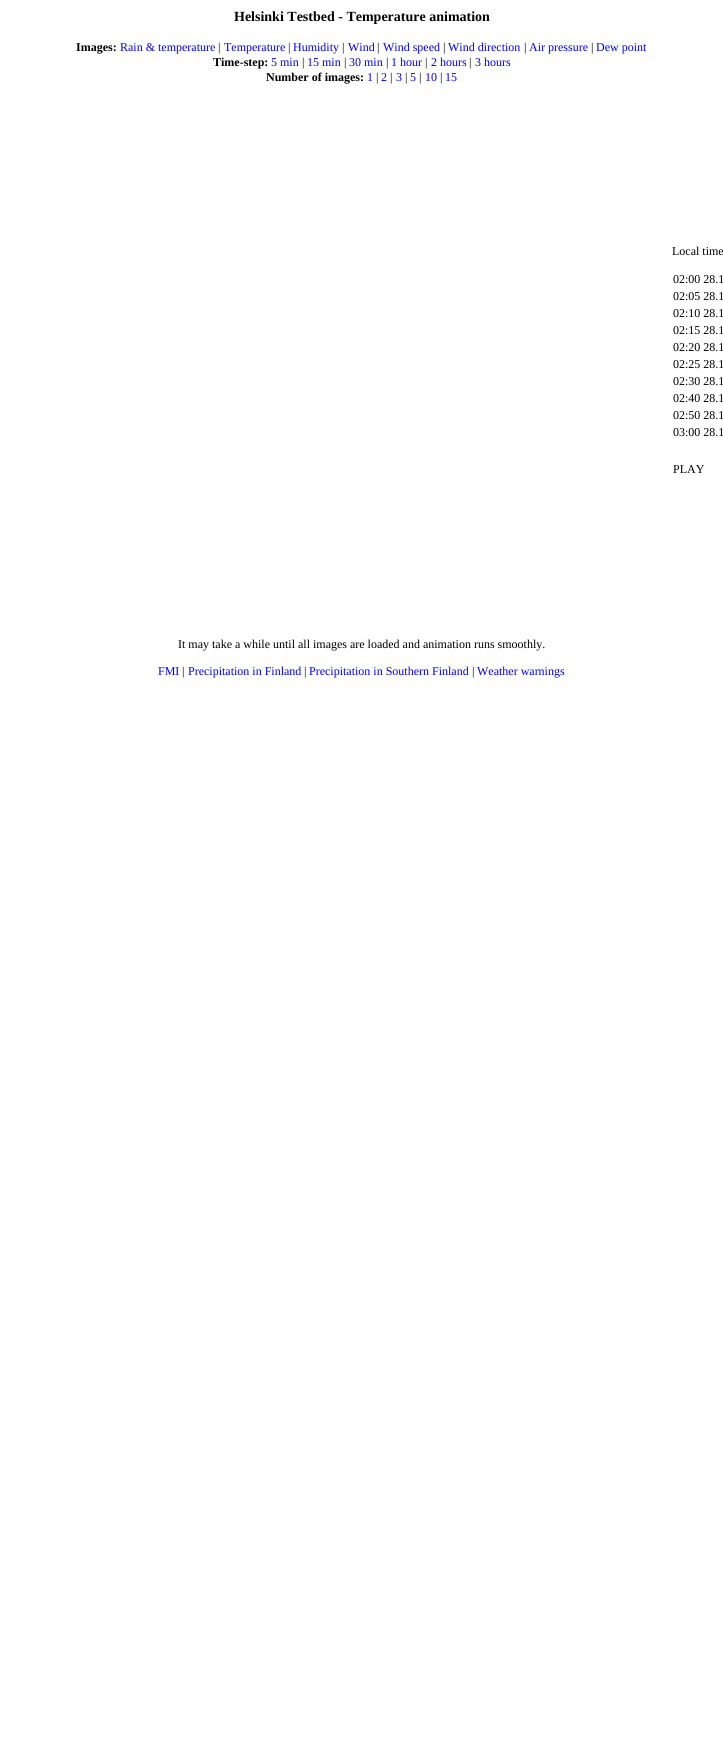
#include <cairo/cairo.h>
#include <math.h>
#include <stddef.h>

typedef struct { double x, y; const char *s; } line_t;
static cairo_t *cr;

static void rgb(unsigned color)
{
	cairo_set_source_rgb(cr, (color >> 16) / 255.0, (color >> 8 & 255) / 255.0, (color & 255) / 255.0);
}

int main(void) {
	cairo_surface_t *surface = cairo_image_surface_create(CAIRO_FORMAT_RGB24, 723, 1739);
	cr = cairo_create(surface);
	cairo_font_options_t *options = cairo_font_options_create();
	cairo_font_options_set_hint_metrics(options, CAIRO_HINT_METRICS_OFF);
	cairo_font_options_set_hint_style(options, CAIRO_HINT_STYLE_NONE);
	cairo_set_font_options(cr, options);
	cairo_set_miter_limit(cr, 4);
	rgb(0xffffff);
	cairo_paint(cr);
	cairo_select_font_face(cr, "Liberation Serif", CAIRO_FONT_SLANT_NORMAL, CAIRO_FONT_WEIGHT_BOLD);
	cairo_set_font_size(cr, 14);
	rgb(0x000000);
	cairo_move_to(cr, 234, 21);
	cairo_show_text(cr, "Helsinki Testbed - Temperature animation");
	cairo_set_font_size(cr, 12);
	cairo_move_to(cr, 76, 51);
	cairo_show_text(cr, "Images:");
	cairo_select_font_face(cr, "Liberation Serif", CAIRO_FONT_SLANT_NORMAL, CAIRO_FONT_WEIGHT_NORMAL);
	rgb(0x0000ff);
	cairo_move_to(cr, 120, 51);
	cairo_show_text(cr, "Rain & temperature");
	rgb(0x000000);
	cairo_move_to(cr, 218, 51);
	cairo_show_text(cr, "|");
	rgb(0x0000ff);
	cairo_move_to(cr, 224, 51);
	cairo_show_text(cr, "Temperature");
	rgb(0x000000);
	cairo_move_to(cr, 288, 51);
	cairo_show_text(cr, "|");
	rgb(0x0000ff);
	cairo_move_to(cr, 293, 51);
	cairo_show_text(cr, "Humidity");
	rgb(0x000000);
	cairo_move_to(cr, 342, 51);
	cairo_show_text(cr, "|");
	rgb(0x0000ff);
	cairo_move_to(cr, 348, 51);
	cairo_show_text(cr, "Wind");
	rgb(0x000000);
	cairo_move_to(cr, 377, 51);
	cairo_show_text(cr, "|");
	rgb(0x0000ff);
	cairo_move_to(cr, 383, 51);
	cairo_show_text(cr, "Wind speed");
	rgb(0x000000);
	cairo_move_to(cr, 443, 51);
	cairo_show_text(cr, "|");
	rgb(0x0000ff);
	cairo_move_to(cr, 448, 51);
	cairo_show_text(cr, "Wind direction");
	rgb(0x000000);
	cairo_move_to(cr, 524, 51);
	cairo_show_text(cr, "|");
	rgb(0x0000ff);
	cairo_move_to(cr, 529, 51);
	cairo_show_text(cr, "Air pressure");
	rgb(0x000000);
	cairo_move_to(cr, 591, 51);
	cairo_show_text(cr, "|");
	rgb(0x0000ff);
	cairo_move_to(cr, 596, 51);
	cairo_show_text(cr, "Dew point");
	cairo_select_font_face(cr, "Liberation Serif", CAIRO_FONT_SLANT_NORMAL, CAIRO_FONT_WEIGHT_BOLD);
	rgb(0x000000);
	cairo_move_to(cr, 213, 66);
	cairo_show_text(cr, "Time-step:");
	cairo_select_font_face(cr, "Liberation Serif", CAIRO_FONT_SLANT_NORMAL, CAIRO_FONT_WEIGHT_NORMAL);
	rgb(0x0000ff);
	cairo_move_to(cr, 271, 66);
	cairo_show_text(cr, "5 min");
	rgb(0x000000);
	cairo_move_to(cr, 302, 66);
	cairo_show_text(cr, "|");
	rgb(0x0000ff);
	cairo_move_to(cr, 307, 66);
	cairo_show_text(cr, "15 min");
	rgb(0x000000);
	cairo_move_to(cr, 344, 66);
	cairo_show_text(cr, "|");
	rgb(0x0000ff);
	cairo_move_to(cr, 349, 66);
	cairo_show_text(cr, "30 min");
	rgb(0x000000);
	cairo_move_to(cr, 386, 66);
	cairo_show_text(cr, "|");
	rgb(0x0000ff);
	cairo_move_to(cr, 391, 66);
	cairo_show_text(cr, "1 hour");
	rgb(0x000000);
	cairo_move_to(cr, 425, 66);
	cairo_show_text(cr, "|");
	rgb(0x0000ff);
	cairo_move_to(cr, 431, 66);
	cairo_show_text(cr, "2 hours");
	rgb(0x000000);
	cairo_move_to(cr, 469, 66);
	cairo_show_text(cr, "|");
	rgb(0x0000ff);
	cairo_move_to(cr, 475, 66);
	cairo_show_text(cr, "3 hours");
	cairo_select_font_face(cr, "Liberation Serif", CAIRO_FONT_SLANT_NORMAL, CAIRO_FONT_WEIGHT_BOLD);
	rgb(0x000000);
	cairo_move_to(cr, 266, 81);
	cairo_show_text(cr, "Number of images:");
	cairo_select_font_face(cr, "Liberation Serif", CAIRO_FONT_SLANT_NORMAL, CAIRO_FONT_WEIGHT_NORMAL);
	rgb(0x0000ff);
	cairo_move_to(cr, 367, 81);
	cairo_show_text(cr, "1");
	rgb(0x000000);
	cairo_move_to(cr, 376, 81);
	cairo_show_text(cr, "|");
	rgb(0x0000ff);
	cairo_move_to(cr, 381, 81);
	cairo_show_text(cr, "2");
	rgb(0x000000);
	cairo_move_to(cr, 390, 81);
	cairo_show_text(cr, "|");
	rgb(0x0000ff);
	cairo_move_to(cr, 396, 81);
	cairo_show_text(cr, "3");
	rgb(0x000000);
	cairo_move_to(cr, 405, 81);
	cairo_show_text(cr, "|");
	rgb(0x0000ff);
	cairo_move_to(cr, 410, 81);
	cairo_show_text(cr, "5");
	rgb(0x000000);
	cairo_move_to(cr, 419, 81);
	cairo_show_text(cr, "|");
	rgb(0x0000ff);
	cairo_move_to(cr, 425, 81);
	cairo_show_text(cr, "10");
	rgb(0x000000);
	cairo_move_to(cr, 440, 81);
	cairo_show_text(cr, "|");
	rgb(0x0000ff);
	cairo_move_to(cr, 445, 81);
	cairo_show_text(cr, "15");
	rgb(0x000000);
	{
		static const line_t items[] = {
			{672, 255, "Local time"},
			{673, 283, "02:00 28.1"},
			{673, 300, "02:05 28.1"},
			{673, 317, "02:10 28.1"},
			{673, 334, "02:15 28.1"},
			{673, 351, "02:20 28.1"},
			{673, 368, "02:25 28.1"},
			{673, 385, "02:30 28.1"},
			{673, 402, "02:40 28.1"},
			{673, 419, "02:50 28.1"},
			{673, 436, "03:00 28.1"},
			{673, 473, "PLAY"},
			{178, 648, "It may take a while until all images are loaded and animation runs smoothly."},
		};
		for (size_t i = 0; i < sizeof items / sizeof *items; i++) {
			cairo_move_to(cr, items[i].x, items[i].y);
			cairo_show_text(cr, items[i].s);
		}
	}
	rgb(0x0000ff);
	cairo_move_to(cr, 158, 675);
	cairo_show_text(cr, "FMI");
	rgb(0x000000);
	cairo_move_to(cr, 182, 675);
	cairo_show_text(cr, "|");
	rgb(0x0000ff);
	cairo_move_to(cr, 188, 675);
	cairo_show_text(cr, "Precipitation in Finland");
	rgb(0x000000);
	cairo_move_to(cr, 304, 675);
	cairo_show_text(cr, "|");
	rgb(0x0000ff);
	cairo_move_to(cr, 309, 675);
	cairo_show_text(cr, "Precipitation in Southern Finland");
	rgb(0x000000);
	cairo_move_to(cr, 472, 675);
	cairo_show_text(cr, "|");
	rgb(0x0000ff);
	cairo_move_to(cr, 477, 675);
	cairo_show_text(cr, "Weather warnings");
	cairo_surface_write_to_png(surface, "page.png");
	cairo_font_options_destroy(options);
	cairo_destroy(cr);
	cairo_surface_destroy(surface);
	return 0;
}
